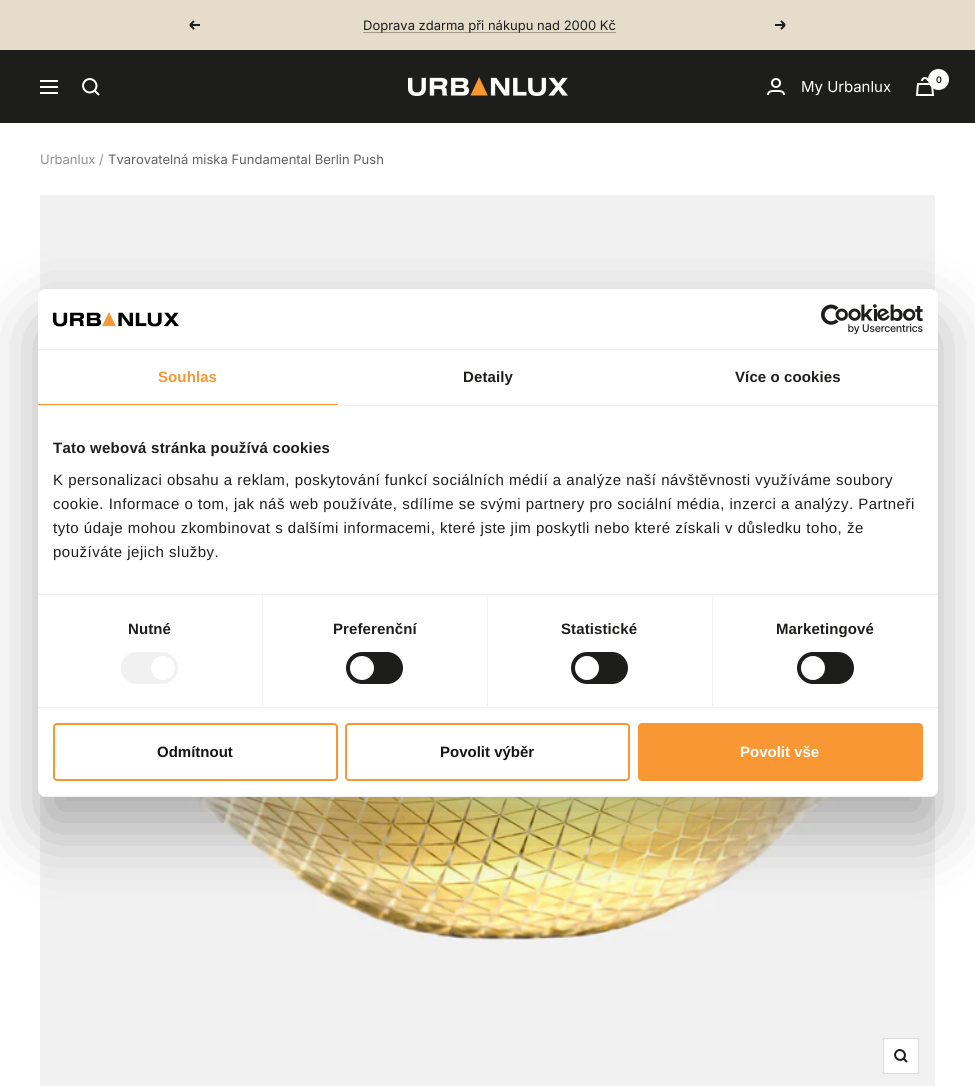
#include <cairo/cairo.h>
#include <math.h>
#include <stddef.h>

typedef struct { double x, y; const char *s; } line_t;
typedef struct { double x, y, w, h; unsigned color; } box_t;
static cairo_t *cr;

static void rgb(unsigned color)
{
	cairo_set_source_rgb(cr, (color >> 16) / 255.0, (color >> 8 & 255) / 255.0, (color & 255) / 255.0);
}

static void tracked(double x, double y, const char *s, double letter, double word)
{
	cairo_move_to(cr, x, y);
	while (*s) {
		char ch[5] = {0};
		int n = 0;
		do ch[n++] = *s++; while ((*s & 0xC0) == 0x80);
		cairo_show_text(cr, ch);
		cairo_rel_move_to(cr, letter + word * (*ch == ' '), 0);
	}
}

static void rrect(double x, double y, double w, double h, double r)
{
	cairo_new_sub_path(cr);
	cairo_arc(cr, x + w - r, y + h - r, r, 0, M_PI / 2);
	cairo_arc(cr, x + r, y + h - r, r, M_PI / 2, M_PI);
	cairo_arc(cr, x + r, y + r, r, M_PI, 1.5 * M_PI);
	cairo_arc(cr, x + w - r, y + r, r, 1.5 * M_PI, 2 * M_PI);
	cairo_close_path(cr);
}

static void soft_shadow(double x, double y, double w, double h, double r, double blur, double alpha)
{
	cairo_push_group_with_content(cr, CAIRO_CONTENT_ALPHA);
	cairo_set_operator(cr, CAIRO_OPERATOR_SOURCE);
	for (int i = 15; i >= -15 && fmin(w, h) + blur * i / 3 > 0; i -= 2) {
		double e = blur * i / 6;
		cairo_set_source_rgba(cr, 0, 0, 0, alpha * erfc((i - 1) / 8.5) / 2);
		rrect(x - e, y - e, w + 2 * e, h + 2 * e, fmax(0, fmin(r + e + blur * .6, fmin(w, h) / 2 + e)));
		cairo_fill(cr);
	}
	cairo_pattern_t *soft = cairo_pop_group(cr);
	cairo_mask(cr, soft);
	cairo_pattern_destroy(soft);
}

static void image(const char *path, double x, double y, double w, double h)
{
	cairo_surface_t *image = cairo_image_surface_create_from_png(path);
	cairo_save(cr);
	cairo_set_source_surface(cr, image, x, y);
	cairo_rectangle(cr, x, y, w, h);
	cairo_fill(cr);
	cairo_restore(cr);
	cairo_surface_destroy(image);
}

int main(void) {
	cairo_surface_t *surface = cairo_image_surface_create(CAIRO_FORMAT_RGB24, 975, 1086);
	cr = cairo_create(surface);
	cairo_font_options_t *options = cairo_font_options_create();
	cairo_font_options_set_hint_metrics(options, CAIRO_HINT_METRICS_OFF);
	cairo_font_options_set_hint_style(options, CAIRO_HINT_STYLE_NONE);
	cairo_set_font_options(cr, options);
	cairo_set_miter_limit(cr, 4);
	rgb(0xffffff);
	cairo_paint(cr);
	rgb(0xe5dccb);
	cairo_rectangle(cr, 0, 0, 975, 50);
	cairo_fill(cr);
	cairo_new_path(cr);
	cairo_move_to(cr, 200, 25);
	cairo_line_to(cr, 190, 25);
	cairo_move_to(cr, 190, 25);
	cairo_line_to(cr, 194, 29);
	cairo_move_to(cr, 190, 25);
	cairo_line_to(cr, 194, 21);
	rgb(0x1d1d1b);
	cairo_stroke(cr);
	rgb(0x9f998d);
	cairo_rectangle(cr, 363, 32, 253, 1);
	cairo_fill(cr);
	cairo_new_path(cr);
	cairo_move_to(cr, 775, 25);
	cairo_line_to(cr, 785, 25);
	cairo_move_to(cr, 785, 25);
	cairo_line_to(cr, 781, 29);
	cairo_move_to(cr, 785, 25);
	cairo_line_to(cr, 781, 21);
	rgb(0x1d1d1b);
	cairo_stroke(cr);
	cairo_rectangle(cr, 0, 50, 975, 73);
	cairo_fill(cr);
	cairo_new_path(cr);
	cairo_move_to(cr, 40, 81);
	cairo_line_to(cr, 58, 81);
	cairo_move_to(cr, 40, 93);
	cairo_line_to(cr, 58, 93);
	cairo_close_path(cr);
	cairo_move_to(cr, 40, 87);
	cairo_line_to(cr, 58, 87);
	cairo_close_path(cr);
	cairo_move_to(cr, 94.5, 90.5);
	cairo_curve_to(cr, 100.5, 84, 91.5, 75, 85, 81);
	cairo_curve_to(cr, 79, 87.5, 88, 96.5, 94.5, 90.5);
	cairo_close_path(cr);
	cairo_move_to(cr, 94.5, 90.5);
	cairo_line_to(cr, 99, 95);
	rgb(0xffffff);
	cairo_stroke(cr);
	image("img/1.png", 408, 77, 160, 19);
	cairo_arc(cr, 776, 83, 4, 0, 2 * M_PI);
	cairo_stroke(cr);
	cairo_new_path(cr);
	cairo_move_to(cr, 768, 95);
	cairo_curve_to(cr, 768, 90.5, 773, 91, 776, 91);
	cairo_curve_to(cr, 779, 91, 784, 90.5, 784, 95);
	cairo_stroke(cr);
	cairo_new_path(cr);
	cairo_move_to(cr, 918, 84);
	cairo_line_to(cr, 932, 84);
	cairo_line_to(cr, 933, 95);
	cairo_line_to(cr, 917, 95);
	cairo_close_path(cr);
	cairo_move_to(cr, 928, 81);
	cairo_curve_to(cr, 928, 77, 922, 77, 922, 81);
	cairo_stroke(cr);
	cairo_arc(cr, 938.5, 79.5, 10.5, 0, 2 * M_PI);
	cairo_fill(cr);
	rgb(0xf1f1f1);
	cairo_rectangle(cr, 40, 195, 895, 891);
	cairo_fill(cr);
	image("img/2.png", 190, 797, 648, 145);
	rgb(0xffffff);
	cairo_rectangle(cr, 883.5, 1038.5, 35, 35);
	cairo_fill_preserve(cr);
	rgb(0xdddddd);
	cairo_set_line_width(cr, 1);
	cairo_stroke(cr);
	cairo_new_path(cr);
	cairo_move_to(cr, 903.5, 1058.5);
	cairo_curve_to(cr, 908, 1054, 901, 1047, 896.5, 1051.5);
	cairo_curve_to(cr, 892, 1056, 899, 1063, 903.5, 1058.5);
	cairo_close_path(cr);
	cairo_move_to(cr, 903.5, 1058.5);
	cairo_line_to(cr, 907, 1062);
	rgb(0x1d1d1b);
	cairo_set_line_width(cr, 2);
	cairo_stroke(cr);
	rgb(0x000000);
	soft_shadow(38, 321, 900, 508, 8, 34, 0.3);
	rgb(0xffffff);
	rrect(38, 289, 900, 508, 8);
	cairo_fill(cr);
	rgb(0xf1f1f1);
	cairo_rectangle(cr, 38, 349, 900, 1);
	cairo_fill(cr);
	image("img/3.png", 52, 312, 127, 15);
	image("img/4.png", 821, 304, 102, 30);
	{
		static const box_t items[] = {
			{38, 405, 900, 1, 0xf1f1f1},
			{38, 404, 300, 1, 0xf89734},
			{38, 594, 900, 1, 0xf1f1f1},
			{38, 707, 900, 1, 0xf1f1f1},
			{262, 595, 1, 112, 0xf1f1f1},
		};
		for (size_t i = 0; i < sizeof items / sizeof *items; i++) {
			rgb(items[i].color);
			cairo_rectangle(cr, items[i].x, items[i].y, items[i].w, items[i].h);
			cairo_fill(cr);
		}
	}
	rrect(121, 652, 57, 32, 16);
	cairo_fill(cr);
	rgb(0xffffff);
	cairo_arc(cr, 163, 668, 12, 0, 2 * M_PI);
	cairo_fill(cr);
	rgb(0xf1f1f1);
	cairo_rectangle(cr, 487, 595, 1, 112);
	cairo_fill(cr);
	rgb(0x1d1d1b);
	rrect(346, 652, 57, 32, 16);
	cairo_fill(cr);
	rgb(0xffffff);
	cairo_arc(cr, 362, 668, 12, 0, 2 * M_PI);
	cairo_fill(cr);
	rgb(0xf1f1f1);
	cairo_rectangle(cr, 712, 595, 1, 112);
	cairo_fill(cr);
	rgb(0x1d1d1b);
	rrect(571, 652, 57, 32, 16);
	cairo_fill(cr);
	rgb(0xffffff);
	cairo_arc(cr, 587, 668, 12, 0, 2 * M_PI);
	cairo_fill(cr);
	rgb(0x1d1d1b);
	rrect(797, 652, 57, 32, 16);
	cairo_fill(cr);
	rgb(0xffffff);
	cairo_arc(cr, 813, 668, 12, 0, 2 * M_PI);
	cairo_fill(cr);
	cairo_save(cr);
	rrect(38, 289, 900, 508, 8);
	cairo_clip(cr);
	rgb(0xf1f1f1);
	cairo_rectangle(cr, 38, 796, 900, 1);
	cairo_fill(cr);
	cairo_restore(cr);
	rrect(54, 724, 283, 56, 3);
	rgb(0xf89730);
	cairo_stroke(cr);
	rrect(346, 724, 283, 56, 3);
	rgb(0xf89734);
	cairo_stroke(cr);
	rrect(639, 724, 283, 56, 3);
	cairo_fill_preserve(cr);
	cairo_stroke(cr);
	cairo_select_font_face(cr, "Inter", CAIRO_FONT_SLANT_NORMAL, CAIRO_FONT_WEIGHT_NORMAL);
	cairo_set_font_size(cr, 13);
	rgb(0x1d1d1b);
	cairo_move_to(cr, 363, 30);
	cairo_show_text(cr, "Doprava zdarma při nákupu nad 2000 Kč");
	cairo_set_font_size(cr, 15);
	rgb(0xffffff);
	cairo_move_to(cr, 801, 92);
	cairo_show_text(cr, "My Urbanlux");
	cairo_select_font_face(cr, "Inter SemiBold", CAIRO_FONT_SLANT_NORMAL, CAIRO_FONT_WEIGHT_NORMAL);
	cairo_set_font_size(cr, 9);
	rgb(0x1d1d1b);
	cairo_move_to(cr, 936, 83);
	cairo_show_text(cr, "0");
	cairo_select_font_face(cr, "Inter", CAIRO_FONT_SLANT_NORMAL, CAIRO_FONT_WEIGHT_NORMAL);
	cairo_set_font_size(cr, 13);
	rgb(0x90908f);
	cairo_move_to(cr, 40, 164);
	cairo_show_text(cr, "Urbanlux");
	cairo_move_to(cr, 99, 164);
	cairo_show_text(cr, "/");
	rgb(0x61615f);
	cairo_move_to(cr, 108, 164);
	cairo_show_text(cr, "Tvarovatelná miska Fundamental Berlin Push");
	cairo_select_font_face(cr, "Liberation Sans", CAIRO_FONT_SLANT_NORMAL, CAIRO_FONT_WEIGHT_BOLD);
	cairo_set_font_size(cr, 15);
	rgb(0xf89734);
	tracked(158, 382, "Souhlas", 0.1, 0);
	rgb(0x1d1d1b);
	tracked(463, 382, "Detaily", 0.1, 0);
	tracked(735, 382, "Více o cookies", 0.1, 0);
	tracked(53, 453, "Tato webová stránka používá cookies", 0.25, 0);
	cairo_select_font_face(cr, "Liberation Sans", CAIRO_FONT_SLANT_NORMAL, CAIRO_FONT_WEIGHT_NORMAL);
	{
		static const line_t items[] = {
			{53, 485, "K personalizaci obsahu a reklam, poskytování funkcí sociálních médií a analýze naší návštěvnosti využíváme soubory"},
			{53, 509, "cookie. Informace o tom, jak náš web používáte, sdílíme se svými partnery pro sociální média, inzerci a analýzy. Partneři"},
			{53, 533, "tyto údaje mohou zkombinovat s dalšími informacemi, které jste jim poskytli nebo které získali v důsledku toho, že"},
			{53, 557, "používáte jejich služby."},
		};
		for (size_t i = 0; i < sizeof items / sizeof *items; i++) {
			tracked(items[i].x, items[i].y, items[i].s, 0.5, 0);
		}
	}
	cairo_select_font_face(cr, "Liberation Sans", CAIRO_FONT_SLANT_NORMAL, CAIRO_FONT_WEIGHT_BOLD);
	{
		static const line_t items[] = {
			{128, 634, "Nutné"},
			{333, 634, "Preferenční"},
			{561, 634, "Statistické"},
			{776, 634, "Marketingové"},
		};
		for (size_t i = 0; i < sizeof items / sizeof *items; i++) {
			tracked(items[i].x, items[i].y, items[i].s, 0.1, 0);
		}
	}
	rgb(0x141414);
	cairo_move_to(cr, 157, 757);
	cairo_show_text(cr, "Odmítnout");
	cairo_move_to(cr, 440, 757);
	cairo_show_text(cr, "Povolit výběr");
	rgb(0xffffff);
	cairo_move_to(cr, 740, 757);
	cairo_show_text(cr, "Povolit vše");
	cairo_surface_write_to_png(surface, "page.png");
	cairo_font_options_destroy(options);
	cairo_destroy(cr);
	cairo_surface_destroy(surface);
	return 0;
}
